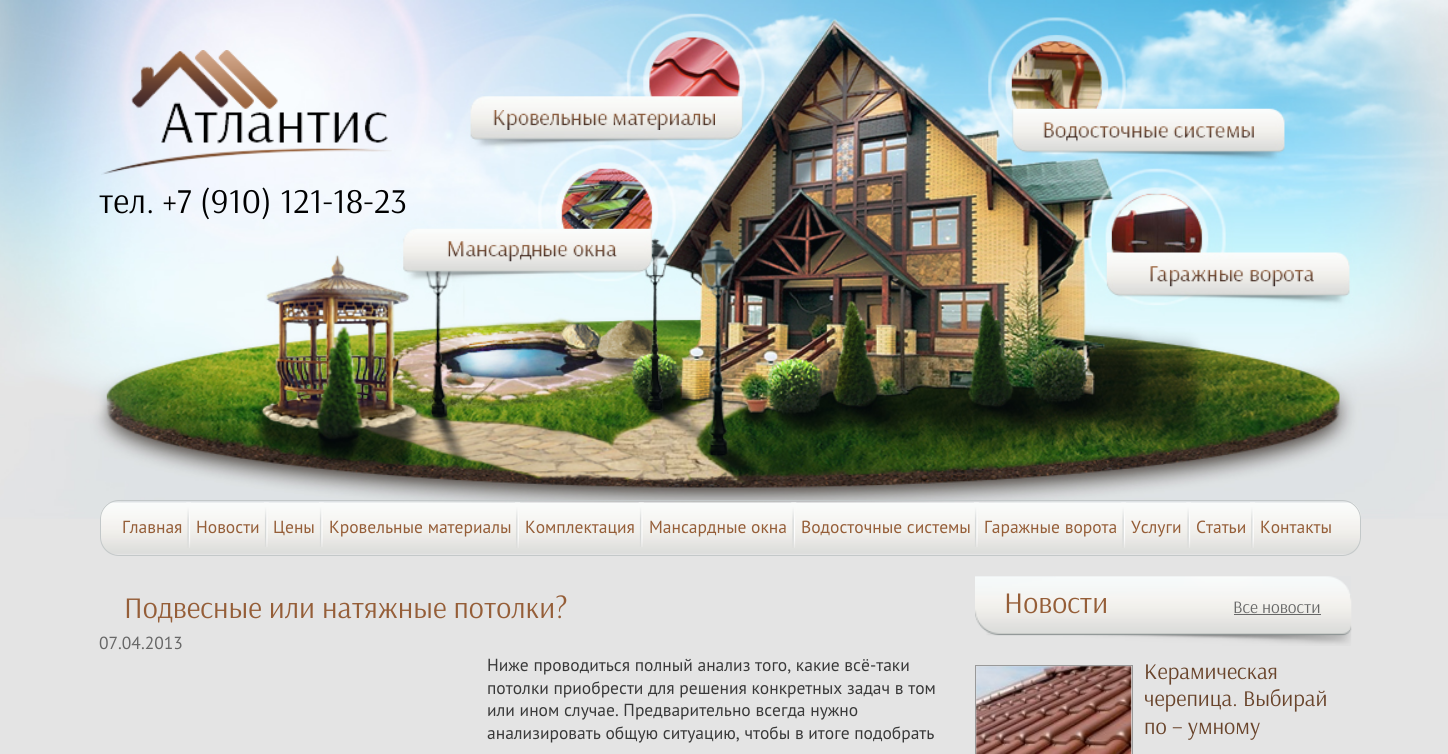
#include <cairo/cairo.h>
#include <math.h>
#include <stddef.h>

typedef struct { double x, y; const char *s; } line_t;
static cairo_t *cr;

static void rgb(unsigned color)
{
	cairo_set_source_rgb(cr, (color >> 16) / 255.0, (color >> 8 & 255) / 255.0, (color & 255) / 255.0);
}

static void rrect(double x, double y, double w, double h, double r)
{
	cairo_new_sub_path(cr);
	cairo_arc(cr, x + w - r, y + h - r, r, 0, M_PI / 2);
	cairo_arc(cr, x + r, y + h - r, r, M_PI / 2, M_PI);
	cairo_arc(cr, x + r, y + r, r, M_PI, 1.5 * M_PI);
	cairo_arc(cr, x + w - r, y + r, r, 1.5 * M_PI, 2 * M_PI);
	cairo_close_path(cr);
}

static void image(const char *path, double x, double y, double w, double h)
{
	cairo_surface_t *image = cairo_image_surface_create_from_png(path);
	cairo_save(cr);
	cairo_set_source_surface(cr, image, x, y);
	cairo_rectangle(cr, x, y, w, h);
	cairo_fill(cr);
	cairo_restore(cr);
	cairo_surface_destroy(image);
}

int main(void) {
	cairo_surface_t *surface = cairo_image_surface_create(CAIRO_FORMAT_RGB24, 1448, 754);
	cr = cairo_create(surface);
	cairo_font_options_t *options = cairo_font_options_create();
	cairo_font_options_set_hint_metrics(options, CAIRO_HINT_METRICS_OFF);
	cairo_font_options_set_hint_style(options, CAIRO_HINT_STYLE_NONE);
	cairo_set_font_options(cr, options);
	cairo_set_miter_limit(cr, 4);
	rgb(0xe4e4e4);
	cairo_paint(cr);
	image("img/1.png", 0, 0, 1448, 519);
	image("img/2.png", 493, 110, 222, 20);
	image("img/3.png", 1043, 122, 211, 20);
	image("img/4.png", 101, 50, 291, 125);
	image("img/5.png", 447, 241, 170, 21);
	image("img/6.png", 1150, 266, 164, 21);
	image("img/7.png", 100, 502, 1261, 52);
	rrect(100.5, 500.5, 1260, 55, 18.5);
	rgb(0xc3c8c9);
	cairo_set_line_width(cr, 1);
	cairo_stroke(cr);
	image("img/8.png", 186, 502, 5, 46);
	image("img/9.png", 264, 502, 5, 45);
	image("img/9.png", 319, 502, 5, 45);
	image("img/10.png", 515, 502, 5, 46);
	image("img/11.png", 638, 502, 6, 45);
	image("img/12.png", 791, 502, 6, 46);
	image("img/13.png", 974, 502, 5, 45);
	image("img/8.png", 1121, 502, 5, 46);
	image("img/8.png", 1186, 502, 5, 46);
	image("img/14.png", 1250, 502, 5, 46);
	image("img/15.png", 975, 576, 377, 70);
	rgb(0x676767);
	cairo_rectangle(cr, 1234, 614, 87, 1);
	cairo_fill(cr);
	cairo_rectangle(cr, 975.5, 665.5, 157, 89);
	rgb(0x999999);
	cairo_stroke(cr);
	image("img/16.png", 976, 666, 156, 88);
	cairo_select_font_face(cr, "Arsenal", CAIRO_FONT_SLANT_NORMAL, CAIRO_FONT_WEIGHT_NORMAL);
	cairo_set_font_size(cr, 35);
	rgb(0x000000);
	cairo_move_to(cr, 99, 213);
	cairo_show_text(cr, "тел. +7 (910) 121-18-23");
	cairo_select_font_face(cr, "PT Sans", CAIRO_FONT_SLANT_NORMAL, CAIRO_FONT_WEIGHT_NORMAL);
	cairo_set_font_size(cr, 17.5);
	rgb(0x955e38);
	{
		static const line_t items[] = {
			{122, 533, "Главная"},
			{196, 533, "Новости"},
			{273, 533, "Цены"},
			{329, 533, "Кровельные материалы"},
			{525, 533, "Комплектация"},
			{649, 533, "Мансардные окна"},
			{801, 533, "Водосточные системы"},
			{984, 533, "Гаражные ворота"},
			{1131, 533, "Услуги"},
			{1196, 533, "Статьи"},
			{1260, 533, "Контакты"},
		};
		for (size_t i = 0; i < sizeof items / sizeof *items; i++) {
			cairo_move_to(cr, items[i].x, items[i].y);
			cairo_show_text(cr, items[i].s);
		}
	}
	cairo_select_font_face(cr, "Arsenal", CAIRO_FONT_SLANT_NORMAL, CAIRO_FONT_WEIGHT_NORMAL);
	cairo_set_font_size(cr, 30);
	cairo_move_to(cr, 124, 618);
	cairo_show_text(cr, "Подвесные или натяжные потолки?");
	cairo_select_font_face(cr, "PT Sans", CAIRO_FONT_SLANT_NORMAL, CAIRO_FONT_WEIGHT_NORMAL);
	cairo_set_font_size(cr, 17.5);
	rgb(0x676767);
	cairo_move_to(cr, 99, 649);
	cairo_show_text(cr, "07.04.2013");
	rgb(0x393939);
	{
		static const line_t items[] = {
			{487, 671, "Ниже проводиться полный анализ того, какие всё-таки"},
			{487, 694, "потолки приобрести для решения конкретных задач в том"},
			{487, 716, "или ином случае. Предварительно всегда нужно"},
			{487, 739, "анализировать общую ситуацию, чтобы в итоге подобрать"},
		};
		for (size_t i = 0; i < sizeof items / sizeof *items; i++) {
			cairo_move_to(cr, items[i].x, items[i].y);
			cairo_show_text(cr, items[i].s);
		}
	}
	cairo_select_font_face(cr, "Arsenal", CAIRO_FONT_SLANT_NORMAL, CAIRO_FONT_WEIGHT_NORMAL);
	cairo_set_font_size(cr, 30);
	rgb(0x955e38);
	cairo_move_to(cr, 1004, 613);
	cairo_show_text(cr, "Новости");
	cairo_set_font_size(cr, 17.5);
	rgb(0x676767);
	cairo_move_to(cr, 1233, 613);
	cairo_show_text(cr, "Все новости");
	cairo_set_font_size(cr, 22.5);
	rgb(0x69442b);
	{
		static const line_t items[] = {
			{1144, 679, "Керамическая"},
			{1144, 706, "черепица. Выбирай"},
			{1144, 734, "по – умному"},
		};
		for (size_t i = 0; i < sizeof items / sizeof *items; i++) {
			cairo_move_to(cr, items[i].x, items[i].y);
			cairo_show_text(cr, items[i].s);
		}
	}
	cairo_surface_write_to_png(surface, "page.png");
	cairo_font_options_destroy(options);
	cairo_destroy(cr);
	cairo_surface_destroy(surface);
	return 0;
}
